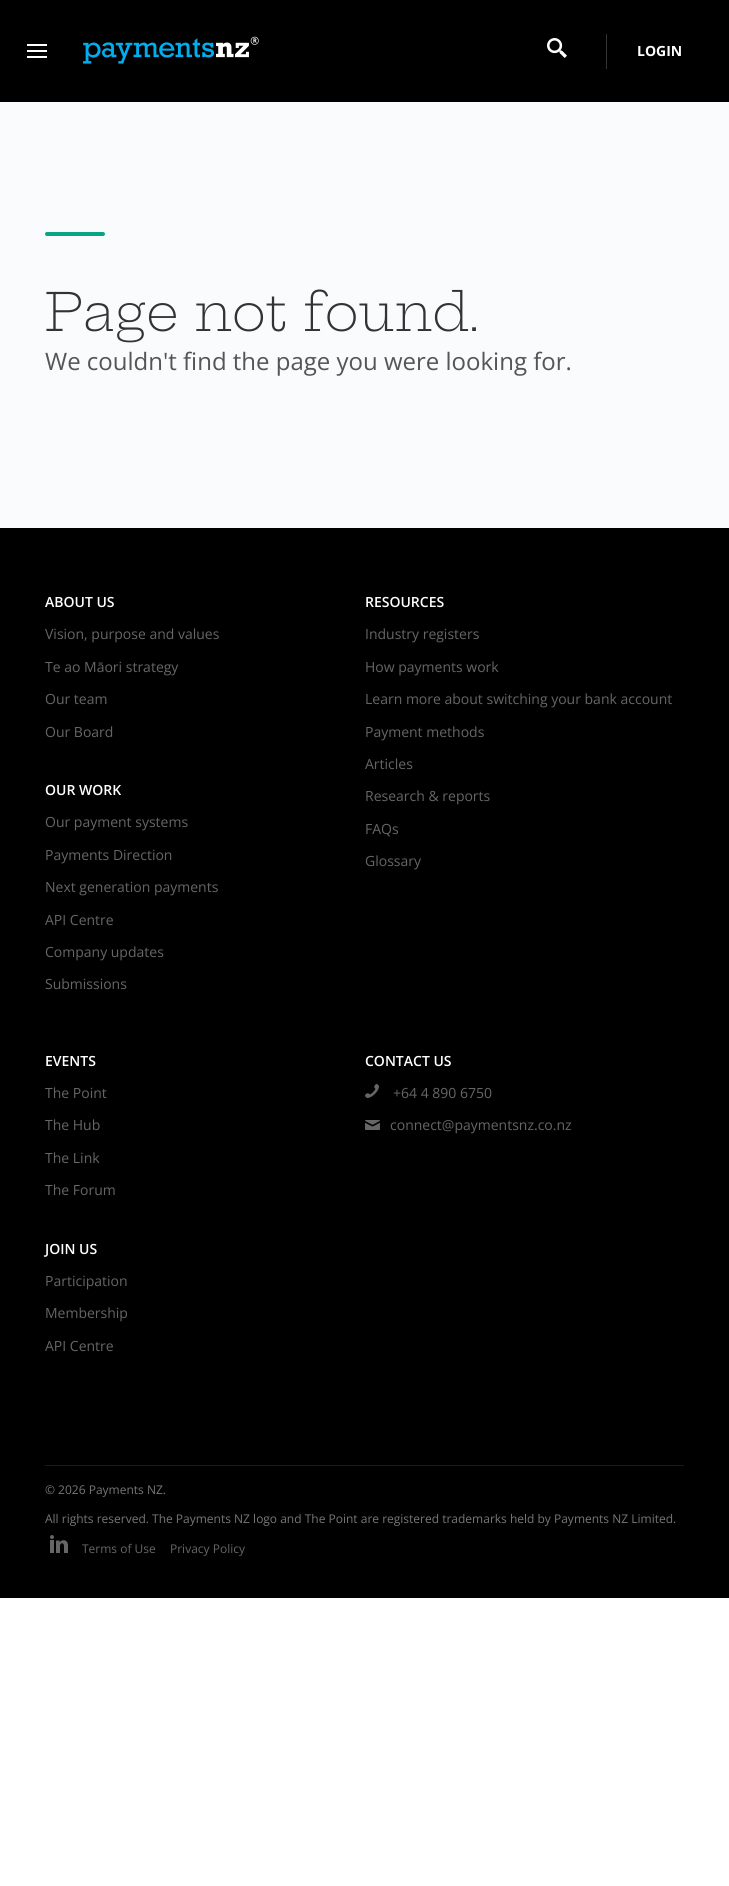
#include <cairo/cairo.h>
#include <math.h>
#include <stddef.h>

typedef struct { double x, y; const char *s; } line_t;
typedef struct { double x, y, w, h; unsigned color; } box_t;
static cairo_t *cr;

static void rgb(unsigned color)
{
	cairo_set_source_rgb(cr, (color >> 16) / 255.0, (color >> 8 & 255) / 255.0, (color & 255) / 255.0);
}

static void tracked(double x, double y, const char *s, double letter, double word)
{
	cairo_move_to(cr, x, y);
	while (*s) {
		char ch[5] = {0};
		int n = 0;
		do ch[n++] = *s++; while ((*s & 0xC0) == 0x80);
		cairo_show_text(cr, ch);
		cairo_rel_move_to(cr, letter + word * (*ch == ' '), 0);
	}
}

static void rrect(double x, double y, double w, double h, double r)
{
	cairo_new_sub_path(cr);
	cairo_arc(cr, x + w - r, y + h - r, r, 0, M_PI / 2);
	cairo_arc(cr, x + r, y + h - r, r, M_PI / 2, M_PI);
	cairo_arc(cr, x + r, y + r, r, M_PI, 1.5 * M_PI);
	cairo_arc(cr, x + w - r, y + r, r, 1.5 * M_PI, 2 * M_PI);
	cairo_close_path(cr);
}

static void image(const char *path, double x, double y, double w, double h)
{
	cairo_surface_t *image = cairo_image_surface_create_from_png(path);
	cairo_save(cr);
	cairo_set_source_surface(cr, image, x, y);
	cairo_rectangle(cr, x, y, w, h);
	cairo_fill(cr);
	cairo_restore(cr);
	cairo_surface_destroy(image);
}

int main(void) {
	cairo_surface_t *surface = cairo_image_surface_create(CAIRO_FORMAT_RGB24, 729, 1886);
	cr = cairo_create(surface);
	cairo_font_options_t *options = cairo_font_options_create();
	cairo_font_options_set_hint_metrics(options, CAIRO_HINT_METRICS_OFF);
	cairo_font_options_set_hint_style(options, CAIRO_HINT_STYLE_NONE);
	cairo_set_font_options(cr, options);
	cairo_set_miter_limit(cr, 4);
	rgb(0xffffff);
	cairo_paint(cr);
	{
		static const box_t items[] = {
			{0, 0, 729, 102, 0x000000},
			{27, 44, 20, 2, 0xffffff},
			{27, 50, 20, 2, 0xffffff},
			{27, 56, 20, 2, 0xffffff},
		};
		for (size_t i = 0; i < sizeof items / sizeof *items; i++) {
			rgb(items[i].color);
			cairo_rectangle(cr, items[i].x, items[i].y, items[i].w, items[i].h);
			cairo_fill(cr);
		}
	}
	image("img/1.png", 83, 36, 176, 28);
	image("img/2.png", 547, 38, 20, 20);
	rgb(0x333333);
	cairo_rectangle(cr, 606, 34, 1, 35);
	cairo_fill(cr);
	rgb(0xf9fbfc);
	cairo_rectangle(cr, 0, 102, 729, 426);
	cairo_fill(cr);
	rgb(0x07a485);
	rrect(45, 232, 60, 4, 2);
	cairo_fill(cr);
	rgb(0x000000);
	cairo_rectangle(cr, 0, 528, 729, 1070);
	cairo_fill(cr);
	image("img/3.png", 365, 1084, 14, 14);
	image("img/4.png", 365, 1120, 15, 10);
	rgb(0x1a1a1a);
	cairo_rectangle(cr, 45, 1465, 639, 1);
	cairo_fill(cr);
	image("img/5.png", 50, 1535, 18, 18);
	cairo_select_font_face(cr, "Open Sans", CAIRO_FONT_SLANT_NORMAL, CAIRO_FONT_WEIGHT_BOLD);
	cairo_set_font_size(cr, 14);
	rgb(0xffffff);
	cairo_move_to(cr, 637, 56);
	cairo_show_text(cr, "LOGIN");
	cairo_select_font_face(cr, "Hepta Slab Light", CAIRO_FONT_SLANT_NORMAL, CAIRO_FONT_WEIGHT_NORMAL);
	cairo_set_font_size(cr, 52);
	rgb(0x333333);
	tracked(45, 331, "Page not found.", -0.5, 0);
	cairo_select_font_face(cr, "Open Sans", CAIRO_FONT_SLANT_NORMAL, CAIRO_FONT_WEIGHT_NORMAL);
	cairo_set_font_size(cr, 24);
	rgb(0x555555);
	cairo_move_to(cr, 45, 370);
	cairo_show_text(cr, "We couldn't find the page you were looking for.");
	cairo_select_font_face(cr, "Open Sans SemiBold", CAIRO_FONT_SLANT_NORMAL, CAIRO_FONT_WEIGHT_NORMAL);
	cairo_set_font_size(cr, 14);
	rgb(0xffffff);
	cairo_move_to(cr, 45, 607);
	cairo_show_text(cr, "ABOUT US");
	cairo_select_font_face(cr, "Open Sans", CAIRO_FONT_SLANT_NORMAL, CAIRO_FONT_WEIGHT_NORMAL);
	rgb(0x666666);
	{
		static const line_t items[] = {
			{45, 639, "Vision, purpose and values"},
			{45, 672, "Te ao Māori strategy"},
			{45, 704, "Our team"},
			{45, 737, "Our Board"},
		};
		for (size_t i = 0; i < sizeof items / sizeof *items; i++) {
			cairo_move_to(cr, items[i].x, items[i].y);
			cairo_show_text(cr, items[i].s);
		}
	}
	cairo_select_font_face(cr, "Open Sans SemiBold", CAIRO_FONT_SLANT_NORMAL, CAIRO_FONT_WEIGHT_NORMAL);
	rgb(0xffffff);
	cairo_move_to(cr, 45, 795);
	cairo_show_text(cr, "OUR WORK");
	cairo_select_font_face(cr, "Open Sans", CAIRO_FONT_SLANT_NORMAL, CAIRO_FONT_WEIGHT_NORMAL);
	rgb(0x666666);
	{
		static const line_t items[] = {
			{45, 827, "Our payment systems"},
			{45, 860, "Payments Direction"},
			{45, 892, "Next generation payments"},
			{45, 925, "API Centre"},
			{45, 957, "Company updates"},
			{45, 989, "Submissions"},
		};
		for (size_t i = 0; i < sizeof items / sizeof *items; i++) {
			cairo_move_to(cr, items[i].x, items[i].y);
			cairo_show_text(cr, items[i].s);
		}
	}
	cairo_select_font_face(cr, "Open Sans SemiBold", CAIRO_FONT_SLANT_NORMAL, CAIRO_FONT_WEIGHT_NORMAL);
	rgb(0xffffff);
	cairo_move_to(cr, 365, 607);
	cairo_show_text(cr, "RESOURCES");
	cairo_select_font_face(cr, "Open Sans", CAIRO_FONT_SLANT_NORMAL, CAIRO_FONT_WEIGHT_NORMAL);
	rgb(0x666666);
	{
		static const line_t items[] = {
			{365, 639, "Industry registers"},
			{365, 672, "How payments work"},
			{365, 704, "Learn more about switching your bank account"},
			{365, 737, "Payment methods"},
			{365, 769, "Articles"},
			{365, 801, "Research & reports"},
			{365, 834, "FAQs"},
			{365, 866, "Glossary"},
		};
		for (size_t i = 0; i < sizeof items / sizeof *items; i++) {
			cairo_move_to(cr, items[i].x, items[i].y);
			cairo_show_text(cr, items[i].s);
		}
	}
	cairo_select_font_face(cr, "Open Sans SemiBold", CAIRO_FONT_SLANT_NORMAL, CAIRO_FONT_WEIGHT_NORMAL);
	rgb(0xffffff);
	cairo_move_to(cr, 45, 1066);
	cairo_show_text(cr, "EVENTS");
	cairo_select_font_face(cr, "Open Sans", CAIRO_FONT_SLANT_NORMAL, CAIRO_FONT_WEIGHT_NORMAL);
	rgb(0x666666);
	{
		static const line_t items[] = {
			{45, 1098, "The Point"},
			{45, 1130, "The Hub"},
			{45, 1163, "The Link"},
			{45, 1195, "The Forum"},
		};
		for (size_t i = 0; i < sizeof items / sizeof *items; i++) {
			cairo_move_to(cr, items[i].x, items[i].y);
			cairo_show_text(cr, items[i].s);
		}
	}
	cairo_select_font_face(cr, "Open Sans SemiBold", CAIRO_FONT_SLANT_NORMAL, CAIRO_FONT_WEIGHT_NORMAL);
	rgb(0xffffff);
	cairo_move_to(cr, 45, 1254);
	cairo_show_text(cr, "JOIN US");
	cairo_select_font_face(cr, "Open Sans", CAIRO_FONT_SLANT_NORMAL, CAIRO_FONT_WEIGHT_NORMAL);
	rgb(0x666666);
	{
		static const line_t items[] = {
			{45, 1286, "Participation"},
			{45, 1318, "Membership"},
			{45, 1351, "API Centre"},
		};
		for (size_t i = 0; i < sizeof items / sizeof *items; i++) {
			cairo_move_to(cr, items[i].x, items[i].y);
			cairo_show_text(cr, items[i].s);
		}
	}
	cairo_select_font_face(cr, "Open Sans SemiBold", CAIRO_FONT_SLANT_NORMAL, CAIRO_FONT_WEIGHT_NORMAL);
	rgb(0xffffff);
	cairo_move_to(cr, 365, 1066);
	cairo_show_text(cr, "CONTACT US");
	cairo_select_font_face(cr, "Open Sans", CAIRO_FONT_SLANT_NORMAL, CAIRO_FONT_WEIGHT_NORMAL);
	rgb(0x666666);
	cairo_move_to(cr, 393, 1098);
	cairo_show_text(cr, "+64 4 890 6750");
	cairo_move_to(cr, 390, 1130);
	cairo_show_text(cr, "connect@paymentsnz.co.nz");
	cairo_set_font_size(cr, 12);
	rgb(0x777777);
	cairo_move_to(cr, 45, 1494);
	cairo_show_text(cr, "© 2026 Payments NZ.");
	cairo_move_to(cr, 45, 1523);
	cairo_show_text(cr, "All rights reserved. The Payments NZ logo and The Point are registered trademarks held by Payments NZ Limited.");
	rgb(0x666666);
	cairo_move_to(cr, 82, 1553);
	cairo_show_text(cr, "Terms of Use");
	cairo_move_to(cr, 170, 1553);
	cairo_show_text(cr, "Privacy Policy");
	cairo_surface_write_to_png(surface, "page.png");
	cairo_font_options_destroy(options);
	cairo_destroy(cr);
	cairo_surface_destroy(surface);
	return 0;
}
